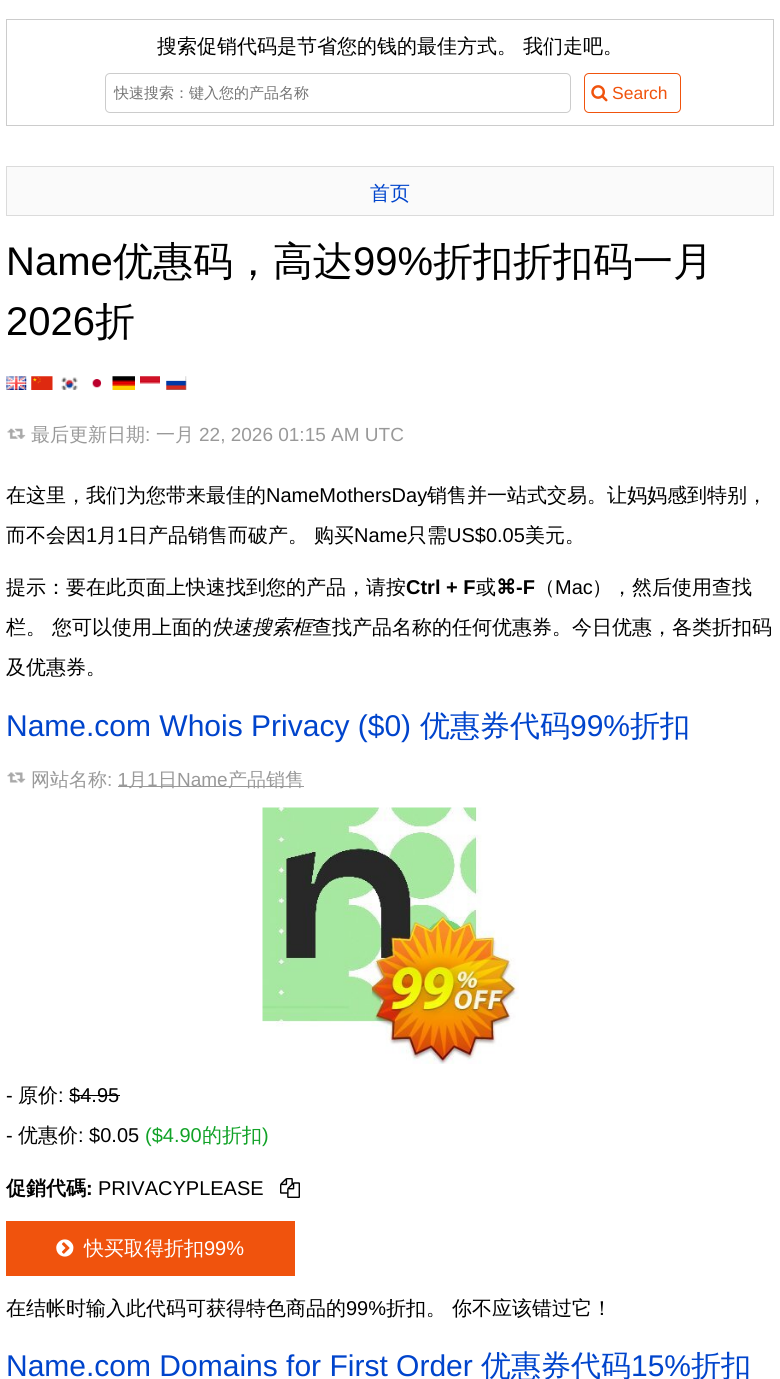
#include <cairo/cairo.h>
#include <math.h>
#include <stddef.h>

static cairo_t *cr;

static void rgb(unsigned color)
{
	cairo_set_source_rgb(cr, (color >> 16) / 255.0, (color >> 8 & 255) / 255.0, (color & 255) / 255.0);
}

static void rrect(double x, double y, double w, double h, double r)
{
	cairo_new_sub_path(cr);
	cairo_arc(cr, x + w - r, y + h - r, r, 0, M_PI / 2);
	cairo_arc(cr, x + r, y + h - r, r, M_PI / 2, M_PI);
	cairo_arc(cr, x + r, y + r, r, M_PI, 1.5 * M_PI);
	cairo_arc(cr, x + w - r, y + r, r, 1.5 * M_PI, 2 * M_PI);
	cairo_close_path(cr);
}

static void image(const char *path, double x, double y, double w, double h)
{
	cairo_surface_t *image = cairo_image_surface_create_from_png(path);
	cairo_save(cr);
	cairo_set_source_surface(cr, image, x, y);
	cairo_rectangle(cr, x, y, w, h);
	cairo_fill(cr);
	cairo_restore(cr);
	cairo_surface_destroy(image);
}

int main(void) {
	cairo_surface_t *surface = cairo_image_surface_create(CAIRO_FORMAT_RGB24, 780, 1379);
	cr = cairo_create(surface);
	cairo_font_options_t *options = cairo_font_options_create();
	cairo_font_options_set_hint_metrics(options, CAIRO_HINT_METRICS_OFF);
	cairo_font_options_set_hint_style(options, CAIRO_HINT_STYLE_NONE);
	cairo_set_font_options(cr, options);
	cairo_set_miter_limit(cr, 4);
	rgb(0xffffff);
	cairo_paint(cr);
	cairo_rectangle(cr, 6.5, 19.5, 767, 106);
	rgb(0xcccccc);
	cairo_set_line_width(cr, 1);
	cairo_stroke(cr);
	rrect(105.5, 73.5, 465, 39, 4.5);
	cairo_stroke(cr);
	rrect(584.5, 73.5, 96, 39, 4.5);
	rgb(0xf0530d);
	cairo_stroke(cr);
	image("img/1.png", 591, 85, 17, 17);
	rgb(0xfafafa);
	cairo_rectangle(cr, 6.5, 166.5, 767, 49);
	cairo_fill_preserve(cr);
	rgb(0xdbdbdb);
	cairo_stroke(cr);
	image("img/2.png", 6, 376, 21, 14);
	image("img/3.png", 31, 376, 22, 14);
	image("img/4.png", 61, 377, 17, 13);
	image("img/5.png", 92, 379, 10, 9);
	image("img/6.png", 112, 376, 23, 14);
	image("img/7.png", 140, 376, 20, 8);
	image("img/8.png", 166, 376, 21, 14);
	image("img/9.png", 7, 428, 19, 11);
	image("img/10.png", 7, 772, 19, 11);
	rgb(0x999999);
	cairo_rectangle(cr, 118, 786, 186, 1);
	cairo_fill(cr);
	image("img/11.png", 262, 807, 257, 257);
	rgb(0x000000);
	cairo_rectangle(cr, 70, 1095, 50, 1);
	cairo_fill(cr);
	image("img/12.png", 280, 1178, 20, 20);
	rgb(0xf0530d);
	cairo_rectangle(cr, 6, 1221, 289, 55);
	cairo_fill(cr);
	image("img/13.png", 56, 1239, 18, 18);
	cairo_select_font_face(cr, "WenQuanYi Zen Hei Medium", CAIRO_FONT_SLANT_NORMAL, CAIRO_FONT_WEIGHT_NORMAL);
	cairo_set_font_size(cr, 20);
	rgb(0x000000);
	cairo_move_to(cr, 157, 53);
	cairo_show_text(cr, "搜索促销代码是节省您的钱的最佳方式。 我们走吧。");
	cairo_set_font_size(cr, 15);
	rgb(0x757575);
	cairo_move_to(cr, 114, 98);
	cairo_show_text(cr, "快速搜索：键入您的产品名称");
	cairo_select_font_face(cr, "Liberation Sans", CAIRO_FONT_SLANT_NORMAL, CAIRO_FONT_WEIGHT_NORMAL);
	cairo_set_font_size(cr, 17.5);
	rgb(0xf0530d);
	cairo_move_to(cr, 612, 99);
	cairo_show_text(cr, "Search");
	cairo_select_font_face(cr, "WenQuanYi Zen Hei Medium", CAIRO_FONT_SLANT_NORMAL, CAIRO_FONT_WEIGHT_NORMAL);
	cairo_set_font_size(cr, 20);
	rgb(0x0044cc);
	cairo_move_to(cr, 370, 200);
	cairo_show_text(cr, "首页");
	cairo_select_font_face(cr, "Liberation Sans", CAIRO_FONT_SLANT_NORMAL, CAIRO_FONT_WEIGHT_NORMAL);
	cairo_set_font_size(cr, 40);
	rgb(0x000000);
	cairo_move_to(cr, 6, 275);
	cairo_show_text(cr, "Name");
	cairo_select_font_face(cr, "WenQuanYi Zen Hei Medium", CAIRO_FONT_SLANT_NORMAL, CAIRO_FONT_WEIGHT_NORMAL);
	cairo_move_to(cr, 113, 275);
	cairo_show_text(cr, "优惠码，高达");
	cairo_select_font_face(cr, "Liberation Sans", CAIRO_FONT_SLANT_NORMAL, CAIRO_FONT_WEIGHT_NORMAL);
	cairo_move_to(cr, 353, 275);
	cairo_show_text(cr, "99%");
	cairo_select_font_face(cr, "WenQuanYi Zen Hei Medium", CAIRO_FONT_SLANT_NORMAL, CAIRO_FONT_WEIGHT_NORMAL);
	cairo_move_to(cr, 433, 275);
	cairo_show_text(cr, "折扣折扣码一月");
	cairo_select_font_face(cr, "Liberation Sans", CAIRO_FONT_SLANT_NORMAL, CAIRO_FONT_WEIGHT_NORMAL);
	cairo_move_to(cr, 6, 335);
	cairo_show_text(cr, "2026");
	cairo_select_font_face(cr, "WenQuanYi Zen Hei Medium", CAIRO_FONT_SLANT_NORMAL, CAIRO_FONT_WEIGHT_NORMAL);
	cairo_move_to(cr, 95, 335);
	cairo_show_text(cr, "折");
	cairo_set_font_size(cr, 19);
	rgb(0x999999);
	cairo_move_to(cr, 31, 441);
	cairo_show_text(cr, "最后更新日期");
	cairo_select_font_face(cr, "Liberation Sans", CAIRO_FONT_SLANT_NORMAL, CAIRO_FONT_WEIGHT_NORMAL);
	cairo_move_to(cr, 145, 441);
	cairo_show_text(cr, ":");
	cairo_select_font_face(cr, "WenQuanYi Zen Hei Medium", CAIRO_FONT_SLANT_NORMAL, CAIRO_FONT_WEIGHT_NORMAL);
	cairo_move_to(cr, 156, 441);
	cairo_show_text(cr, "一月");
	cairo_select_font_face(cr, "Liberation Sans", CAIRO_FONT_SLANT_NORMAL, CAIRO_FONT_WEIGHT_NORMAL);
	cairo_move_to(cr, 199, 441);
	cairo_show_text(cr, "22, 2026 01:15 AM UTC");
	cairo_select_font_face(cr, "WenQuanYi Zen Hei Medium", CAIRO_FONT_SLANT_NORMAL, CAIRO_FONT_WEIGHT_NORMAL);
	cairo_set_font_size(cr, 20);
	rgb(0x000000);
	cairo_move_to(cr, 6, 502);
	cairo_show_text(cr, "在这里，我们为您带来最佳的");
	cairo_select_font_face(cr, "Liberation Sans", CAIRO_FONT_SLANT_NORMAL, CAIRO_FONT_WEIGHT_NORMAL);
	cairo_move_to(cr, 266, 502);
	cairo_show_text(cr, "NameMothersDay");
	cairo_select_font_face(cr, "WenQuanYi Zen Hei Medium", CAIRO_FONT_SLANT_NORMAL, CAIRO_FONT_WEIGHT_NORMAL);
	cairo_move_to(cr, 427, 502);
	cairo_show_text(cr, "销售并一站式交易。让妈妈感到特别，");
	cairo_move_to(cr, 6, 542);
	cairo_show_text(cr, "而不会因");
	cairo_select_font_face(cr, "Liberation Sans", CAIRO_FONT_SLANT_NORMAL, CAIRO_FONT_WEIGHT_NORMAL);
	cairo_move_to(cr, 86, 542);
	cairo_show_text(cr, "1");
	cairo_select_font_face(cr, "WenQuanYi Zen Hei Medium", CAIRO_FONT_SLANT_NORMAL, CAIRO_FONT_WEIGHT_NORMAL);
	cairo_move_to(cr, 97, 542);
	cairo_show_text(cr, "月");
	cairo_select_font_face(cr, "Liberation Sans", CAIRO_FONT_SLANT_NORMAL, CAIRO_FONT_WEIGHT_NORMAL);
	cairo_move_to(cr, 117, 542);
	cairo_show_text(cr, "1");
	cairo_select_font_face(cr, "WenQuanYi Zen Hei Medium", CAIRO_FONT_SLANT_NORMAL, CAIRO_FONT_WEIGHT_NORMAL);
	cairo_move_to(cr, 128, 542);
	cairo_show_text(cr, "日产品销售而破产。 购买");
	cairo_select_font_face(cr, "Liberation Sans", CAIRO_FONT_SLANT_NORMAL, CAIRO_FONT_WEIGHT_NORMAL);
	cairo_move_to(cr, 354, 542);
	cairo_show_text(cr, "Name");
	cairo_select_font_face(cr, "WenQuanYi Zen Hei Medium", CAIRO_FONT_SLANT_NORMAL, CAIRO_FONT_WEIGHT_NORMAL);
	cairo_move_to(cr, 407, 542);
	cairo_show_text(cr, "只需");
	cairo_select_font_face(cr, "Liberation Sans", CAIRO_FONT_SLANT_NORMAL, CAIRO_FONT_WEIGHT_NORMAL);
	cairo_move_to(cr, 447, 542);
	cairo_show_text(cr, "US$0.05");
	cairo_select_font_face(cr, "WenQuanYi Zen Hei Medium", CAIRO_FONT_SLANT_NORMAL, CAIRO_FONT_WEIGHT_NORMAL);
	cairo_move_to(cr, 525, 542);
	cairo_show_text(cr, "美元。");
	cairo_move_to(cr, 6, 594);
	cairo_show_text(cr, "提示：要在此页面上快速找到您的产品，请按");
	cairo_select_font_face(cr, "Liberation Sans", CAIRO_FONT_SLANT_NORMAL, CAIRO_FONT_WEIGHT_BOLD);
	cairo_move_to(cr, 406, 594);
	cairo_show_text(cr, "Ctrl + F");
	cairo_select_font_face(cr, "WenQuanYi Zen Hei Medium", CAIRO_FONT_SLANT_NORMAL, CAIRO_FONT_WEIGHT_NORMAL);
	cairo_move_to(cr, 476, 594);
	cairo_show_text(cr, "或");
	cairo_select_font_face(cr, "DejaVu Sans", CAIRO_FONT_SLANT_NORMAL, CAIRO_FONT_WEIGHT_BOLD);
	cairo_move_to(cr, 496, 594);
	cairo_show_text(cr, "⌘");
	cairo_select_font_face(cr, "Liberation Sans", CAIRO_FONT_SLANT_NORMAL, CAIRO_FONT_WEIGHT_BOLD);
	cairo_move_to(cr, 516, 594);
	cairo_show_text(cr, "-F");
	cairo_select_font_face(cr, "WenQuanYi Zen Hei Medium", CAIRO_FONT_SLANT_NORMAL, CAIRO_FONT_WEIGHT_NORMAL);
	cairo_move_to(cr, 535, 594);
	cairo_show_text(cr, "（");
	cairo_select_font_face(cr, "Liberation Sans", CAIRO_FONT_SLANT_NORMAL, CAIRO_FONT_WEIGHT_NORMAL);
	cairo_move_to(cr, 555, 594);
	cairo_show_text(cr, "Mac");
	cairo_select_font_face(cr, "WenQuanYi Zen Hei Medium", CAIRO_FONT_SLANT_NORMAL, CAIRO_FONT_WEIGHT_NORMAL);
	cairo_move_to(cr, 592, 594);
	cairo_show_text(cr, "），然后使用查找");
	cairo_move_to(cr, 6, 634);
	cairo_show_text(cr, "栏。 您可以使用上面的");
	cairo_select_font_face(cr, "WenQuanYi Zen Hei Medium", CAIRO_FONT_SLANT_ITALIC, CAIRO_FONT_WEIGHT_NORMAL);
	cairo_move_to(cr, 212, 634);
	cairo_show_text(cr, "快速搜索框");
	cairo_select_font_face(cr, "WenQuanYi Zen Hei Medium", CAIRO_FONT_SLANT_NORMAL, CAIRO_FONT_WEIGHT_NORMAL);
	cairo_move_to(cr, 312, 634);
	cairo_show_text(cr, "查找产品名称的任何优惠券。今日优惠，各类折扣码");
	cairo_move_to(cr, 6, 674);
	cairo_show_text(cr, "及优惠券。");
	cairo_select_font_face(cr, "Liberation Sans", CAIRO_FONT_SLANT_NORMAL, CAIRO_FONT_WEIGHT_NORMAL);
	cairo_set_font_size(cr, 30);
	rgb(0x0044cc);
	cairo_move_to(cr, 6, 736);
	cairo_show_text(cr, "Name.com Whois Privacy ($0)");
	cairo_select_font_face(cr, "WenQuanYi Zen Hei Medium", CAIRO_FONT_SLANT_NORMAL, CAIRO_FONT_WEIGHT_NORMAL);
	cairo_move_to(cr, 420, 736);
	cairo_show_text(cr, "优惠券代码");
	cairo_select_font_face(cr, "Liberation Sans", CAIRO_FONT_SLANT_NORMAL, CAIRO_FONT_WEIGHT_NORMAL);
	cairo_move_to(cr, 570, 736);
	cairo_show_text(cr, "99%");
	cairo_select_font_face(cr, "WenQuanYi Zen Hei Medium", CAIRO_FONT_SLANT_NORMAL, CAIRO_FONT_WEIGHT_NORMAL);
	cairo_move_to(cr, 630, 736);
	cairo_show_text(cr, "折扣");
	cairo_set_font_size(cr, 19);
	rgb(0x999999);
	cairo_move_to(cr, 31, 786);
	cairo_show_text(cr, "网站名称");
	cairo_select_font_face(cr, "Liberation Sans", CAIRO_FONT_SLANT_NORMAL, CAIRO_FONT_WEIGHT_NORMAL);
	cairo_move_to(cr, 107, 786);
	cairo_show_text(cr, ": 1");
	cairo_select_font_face(cr, "WenQuanYi Zen Hei Medium", CAIRO_FONT_SLANT_NORMAL, CAIRO_FONT_WEIGHT_NORMAL);
	cairo_move_to(cr, 128, 786);
	cairo_show_text(cr, "月");
	cairo_select_font_face(cr, "Liberation Sans", CAIRO_FONT_SLANT_NORMAL, CAIRO_FONT_WEIGHT_NORMAL);
	cairo_move_to(cr, 147, 786);
	cairo_show_text(cr, "1");
	cairo_select_font_face(cr, "WenQuanYi Zen Hei Medium", CAIRO_FONT_SLANT_NORMAL, CAIRO_FONT_WEIGHT_NORMAL);
	cairo_move_to(cr, 158, 786);
	cairo_show_text(cr, "日");
	cairo_select_font_face(cr, "Liberation Sans", CAIRO_FONT_SLANT_NORMAL, CAIRO_FONT_WEIGHT_NORMAL);
	cairo_move_to(cr, 177, 786);
	cairo_show_text(cr, "Name");
	cairo_select_font_face(cr, "WenQuanYi Zen Hei Medium", CAIRO_FONT_SLANT_NORMAL, CAIRO_FONT_WEIGHT_NORMAL);
	cairo_move_to(cr, 228, 786);
	cairo_show_text(cr, "产品销售");
	cairo_select_font_face(cr, "Liberation Sans", CAIRO_FONT_SLANT_NORMAL, CAIRO_FONT_WEIGHT_NORMAL);
	cairo_set_font_size(cr, 20);
	rgb(0x000000);
	cairo_move_to(cr, 6, 1102);
	cairo_show_text(cr, "-");
	cairo_select_font_face(cr, "WenQuanYi Zen Hei Medium", CAIRO_FONT_SLANT_NORMAL, CAIRO_FONT_WEIGHT_NORMAL);
	cairo_move_to(cr, 18, 1102);
	cairo_show_text(cr, "原价");
	cairo_select_font_face(cr, "Liberation Sans", CAIRO_FONT_SLANT_NORMAL, CAIRO_FONT_WEIGHT_NORMAL);
	cairo_move_to(cr, 58, 1102);
	cairo_show_text(cr, ": $4.95");
	cairo_move_to(cr, 6, 1142);
	cairo_show_text(cr, "-");
	cairo_select_font_face(cr, "WenQuanYi Zen Hei Medium", CAIRO_FONT_SLANT_NORMAL, CAIRO_FONT_WEIGHT_NORMAL);
	cairo_move_to(cr, 18, 1142);
	cairo_show_text(cr, "优惠价");
	cairo_select_font_face(cr, "Liberation Sans", CAIRO_FONT_SLANT_NORMAL, CAIRO_FONT_WEIGHT_NORMAL);
	cairo_move_to(cr, 78, 1142);
	cairo_show_text(cr, ": $0.05");
	rgb(0x11a227);
	cairo_move_to(cr, 145, 1142);
	cairo_show_text(cr, "($4.90");
	cairo_select_font_face(cr, "WenQuanYi Zen Hei Medium", CAIRO_FONT_SLANT_NORMAL, CAIRO_FONT_WEIGHT_NORMAL);
	cairo_move_to(cr, 202, 1142);
	cairo_show_text(cr, "的折扣");
	cairo_select_font_face(cr, "Liberation Sans", CAIRO_FONT_SLANT_NORMAL, CAIRO_FONT_WEIGHT_NORMAL);
	cairo_move_to(cr, 262, 1142);
	cairo_show_text(cr, ")");
	cairo_select_font_face(cr, "WenQuanYi Zen Hei", CAIRO_FONT_SLANT_NORMAL, CAIRO_FONT_WEIGHT_BOLD);
	rgb(0x000000);
	cairo_move_to(cr, 6, 1195);
	cairo_show_text(cr, "促銷代碼");
	cairo_select_font_face(cr, "Liberation Sans", CAIRO_FONT_SLANT_NORMAL, CAIRO_FONT_WEIGHT_BOLD);
	cairo_move_to(cr, 86, 1195);
	cairo_show_text(cr, ":");
	cairo_select_font_face(cr, "Liberation Sans", CAIRO_FONT_SLANT_NORMAL, CAIRO_FONT_WEIGHT_NORMAL);
	cairo_move_to(cr, 98, 1195);
	cairo_show_text(cr, "PRIVACYPLEASE");
	cairo_select_font_face(cr, "WenQuanYi Zen Hei Medium", CAIRO_FONT_SLANT_NORMAL, CAIRO_FONT_WEIGHT_NORMAL);
	rgb(0xffffff);
	cairo_move_to(cr, 84, 1255);
	cairo_show_text(cr, "快买取得折扣");
	cairo_select_font_face(cr, "Liberation Sans", CAIRO_FONT_SLANT_NORMAL, CAIRO_FONT_WEIGHT_NORMAL);
	cairo_move_to(cr, 204, 1255);
	cairo_show_text(cr, "99%");
	cairo_select_font_face(cr, "WenQuanYi Zen Hei Medium", CAIRO_FONT_SLANT_NORMAL, CAIRO_FONT_WEIGHT_NORMAL);
	rgb(0x000000);
	cairo_move_to(cr, 6, 1315);
	cairo_show_text(cr, "在结帐时输入此代码可获得特色商品的");
	cairo_select_font_face(cr, "Liberation Sans", CAIRO_FONT_SLANT_NORMAL, CAIRO_FONT_WEIGHT_NORMAL);
	cairo_move_to(cr, 346, 1315);
	cairo_show_text(cr, "99%");
	cairo_select_font_face(cr, "WenQuanYi Zen Hei Medium", CAIRO_FONT_SLANT_NORMAL, CAIRO_FONT_WEIGHT_NORMAL);
	cairo_move_to(cr, 386, 1315);
	cairo_show_text(cr, "折扣。 你不应该错过它！");
	cairo_select_font_face(cr, "Liberation Sans", CAIRO_FONT_SLANT_NORMAL, CAIRO_FONT_WEIGHT_NORMAL);
	cairo_set_font_size(cr, 30);
	rgb(0x0044cc);
	cairo_move_to(cr, 6, 1376);
	cairo_show_text(cr, "Name.com Domains for First Order");
	cairo_select_font_face(cr, "WenQuanYi Zen Hei Medium", CAIRO_FONT_SLANT_NORMAL, CAIRO_FONT_WEIGHT_NORMAL);
	cairo_move_to(cr, 481, 1376);
	cairo_show_text(cr, "优惠券代码");
	cairo_select_font_face(cr, "Liberation Sans", CAIRO_FONT_SLANT_NORMAL, CAIRO_FONT_WEIGHT_NORMAL);
	cairo_move_to(cr, 631, 1376);
	cairo_show_text(cr, "15%");
	cairo_select_font_face(cr, "WenQuanYi Zen Hei Medium", CAIRO_FONT_SLANT_NORMAL, CAIRO_FONT_WEIGHT_NORMAL);
	cairo_move_to(cr, 691, 1376);
	cairo_show_text(cr, "折扣");
	cairo_surface_write_to_png(surface, "page.png");
	cairo_font_options_destroy(options);
	cairo_destroy(cr);
	cairo_surface_destroy(surface);
	return 0;
}
